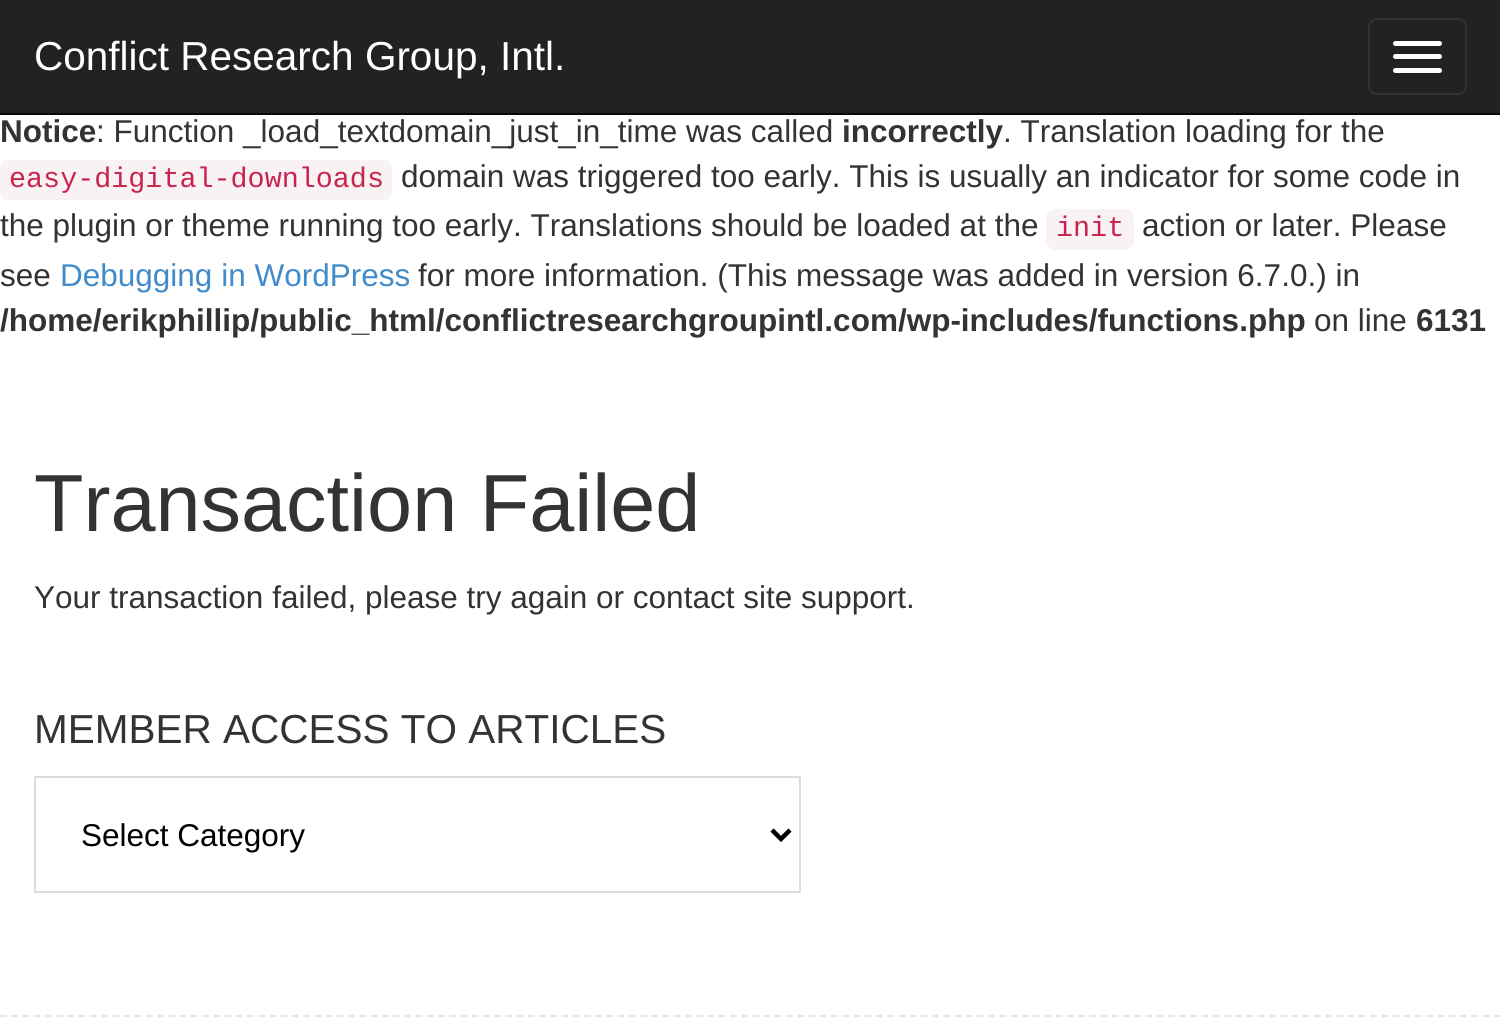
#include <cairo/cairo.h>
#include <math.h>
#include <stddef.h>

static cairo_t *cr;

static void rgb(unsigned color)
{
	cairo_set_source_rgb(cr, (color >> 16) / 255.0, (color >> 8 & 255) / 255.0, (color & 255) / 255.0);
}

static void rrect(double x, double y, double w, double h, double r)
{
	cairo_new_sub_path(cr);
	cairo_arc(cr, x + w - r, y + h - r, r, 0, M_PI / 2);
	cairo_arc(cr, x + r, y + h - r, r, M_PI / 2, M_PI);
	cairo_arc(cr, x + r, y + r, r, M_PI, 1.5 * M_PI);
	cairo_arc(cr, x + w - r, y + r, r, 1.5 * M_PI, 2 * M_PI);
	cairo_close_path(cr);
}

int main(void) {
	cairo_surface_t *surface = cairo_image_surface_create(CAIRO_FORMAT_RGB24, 1500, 1026);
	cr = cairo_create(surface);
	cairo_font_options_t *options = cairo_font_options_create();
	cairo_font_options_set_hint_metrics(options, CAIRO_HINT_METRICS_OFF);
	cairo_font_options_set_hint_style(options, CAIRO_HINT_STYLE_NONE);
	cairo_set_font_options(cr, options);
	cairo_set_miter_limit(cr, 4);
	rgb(0xffffff);
	cairo_paint(cr);
	rgb(0x222222);
	cairo_rectangle(cr, 0, 0, 1500, 113);
	cairo_fill(cr);
	rgb(0x080808);
	cairo_rectangle(cr, 0, 113, 1500, 2);
	cairo_fill(cr);
	rrect(1369, 19, 97, 75, 8);
	rgb(0x333333);
	cairo_stroke(cr);
	rgb(0xffffff);
	rrect(1393, 41, 49, 5, 2.5);
	cairo_fill(cr);
	rrect(1393, 54, 49, 5, 2.5);
	cairo_fill(cr);
	rrect(1393, 68, 49, 5, 2.5);
	cairo_fill(cr);
	cairo_rectangle(cr, 35, 777, 765, 115);
	rgb(0xdddddd);
	cairo_stroke(cr);
	cairo_new_path(cr);
	cairo_move_to(cr, 772, 830);
	cairo_line_to(cr, 781, 839);
	cairo_line_to(cr, 790, 830);
	rgb(0x000000);
	cairo_set_line_width(cr, 4.5);
	cairo_stroke(cr);
	cairo_new_path(cr);
	cairo_move_to(cr, 0, 1016);
	cairo_line_to(cr, 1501, 1016);
	rgb(0xe5e5e5);
	cairo_set_line_width(cr, 2.2);
	cairo_set_dash(cr, (double[]){6.75, 4.48}, 2, 0);
	cairo_stroke(cr);
	rgb(0xf9f2f4);
	rrect(0, 160, 392, 40, 9);
	cairo_fill(cr);
	rrect(1046, 209, 88, 41, 9);
	cairo_fill(cr);
	cairo_select_font_face(cr, "Liberation Sans", CAIRO_FONT_SLANT_NORMAL, CAIRO_FONT_WEIGHT_NORMAL);
	cairo_set_font_size(cr, 40.5);
	rgb(0xffffff);
	cairo_move_to(cr, 34, 70);
	cairo_show_text(cr, "Conflict Research Group, Intl.");
	cairo_set_font_size(cr, 81);
	rgb(0x333333);
	cairo_move_to(cr, 34, 531);
	cairo_show_text(cr, "Transaction Failed");
	cairo_set_font_size(cr, 31.5);
	cairo_move_to(cr, 34, 608);
	cairo_show_text(cr, "Your transaction failed, please try again or contact site support.");
	cairo_set_font_size(cr, 40.5);
	cairo_move_to(cr, 34, 743);
	cairo_show_text(cr, "MEMBER ACCESS TO ARTICLES");
	cairo_set_font_size(cr, 31.5);
	rgb(0x000000);
	cairo_move_to(cr, 81, 846);
	cairo_show_text(cr, "Select Category");
	cairo_select_font_face(cr, "Liberation Sans", CAIRO_FONT_SLANT_NORMAL, CAIRO_FONT_WEIGHT_BOLD);
	rgb(0x333333);
	cairo_move_to(cr, 0, 142);
	cairo_show_text(cr, "Notice");
	cairo_select_font_face(cr, "Liberation Sans", CAIRO_FONT_SLANT_NORMAL, CAIRO_FONT_WEIGHT_NORMAL);
	cairo_move_to(cr, 96, 142);
	cairo_show_text(cr, ": Function _load_textdomain_just_in_time was called");
	cairo_select_font_face(cr, "Liberation Sans", CAIRO_FONT_SLANT_NORMAL, CAIRO_FONT_WEIGHT_BOLD);
	cairo_move_to(cr, 842, 142);
	cairo_show_text(cr, "incorrectly");
	cairo_select_font_face(cr, "Liberation Sans", CAIRO_FONT_SLANT_NORMAL, CAIRO_FONT_WEIGHT_NORMAL);
	cairo_move_to(cr, 1003, 142);
	cairo_show_text(cr, ". Translation loading for the");
	cairo_select_font_face(cr, "Liberation Mono", CAIRO_FONT_SLANT_NORMAL, CAIRO_FONT_WEIGHT_NORMAL);
	cairo_set_font_size(cr, 28.4);
	rgb(0xc7254e);
	cairo_move_to(cr, 9, 187);
	cairo_show_text(cr, "easy-digital-downloads");
	cairo_select_font_face(cr, "Liberation Sans", CAIRO_FONT_SLANT_NORMAL, CAIRO_FONT_WEIGHT_NORMAL);
	cairo_set_font_size(cr, 31.5);
	rgb(0x333333);
	cairo_move_to(cr, 401, 187);
	cairo_show_text(cr, "domain was triggered too early. This is usually an indicator for some code in");
	cairo_move_to(cr, 0, 236);
	cairo_show_text(cr, "the plugin or theme running too early. Translations should be loaded at the");
	cairo_select_font_face(cr, "Liberation Mono", CAIRO_FONT_SLANT_NORMAL, CAIRO_FONT_WEIGHT_NORMAL);
	cairo_set_font_size(cr, 28.4);
	rgb(0xc7254e);
	cairo_move_to(cr, 1056, 236);
	cairo_show_text(cr, "init");
	cairo_select_font_face(cr, "Liberation Sans", CAIRO_FONT_SLANT_NORMAL, CAIRO_FONT_WEIGHT_NORMAL);
	cairo_set_font_size(cr, 31.5);
	rgb(0x333333);
	cairo_move_to(cr, 1142, 236);
	cairo_show_text(cr, "action or later. Please");
	cairo_move_to(cr, 0, 286);
	cairo_show_text(cr, "see");
	rgb(0x428bca);
	cairo_move_to(cr, 60, 286);
	cairo_show_text(cr, "Debugging in WordPress");
	rgb(0x333333);
	cairo_move_to(cr, 418, 286);
	cairo_show_text(cr, "for more information. (This message was added in version 6.7.0.) in");
	cairo_select_font_face(cr, "Liberation Sans", CAIRO_FONT_SLANT_NORMAL, CAIRO_FONT_WEIGHT_BOLD);
	cairo_move_to(cr, 0, 331);
	cairo_show_text(cr, "/home/erikphillip/public_html/conflictresearchgroupintl.com/wp-includes/functions.php");
	cairo_select_font_face(cr, "Liberation Sans", CAIRO_FONT_SLANT_NORMAL, CAIRO_FONT_WEIGHT_NORMAL);
	cairo_move_to(cr, 1314, 331);
	cairo_show_text(cr, "on line");
	cairo_select_font_face(cr, "Liberation Sans", CAIRO_FONT_SLANT_NORMAL, CAIRO_FONT_WEIGHT_BOLD);
	cairo_move_to(cr, 1416, 331);
	cairo_show_text(cr, "6131");
	cairo_surface_write_to_png(surface, "page.png");
	cairo_font_options_destroy(options);
	cairo_destroy(cr);
	cairo_surface_destroy(surface);
	return 0;
}
